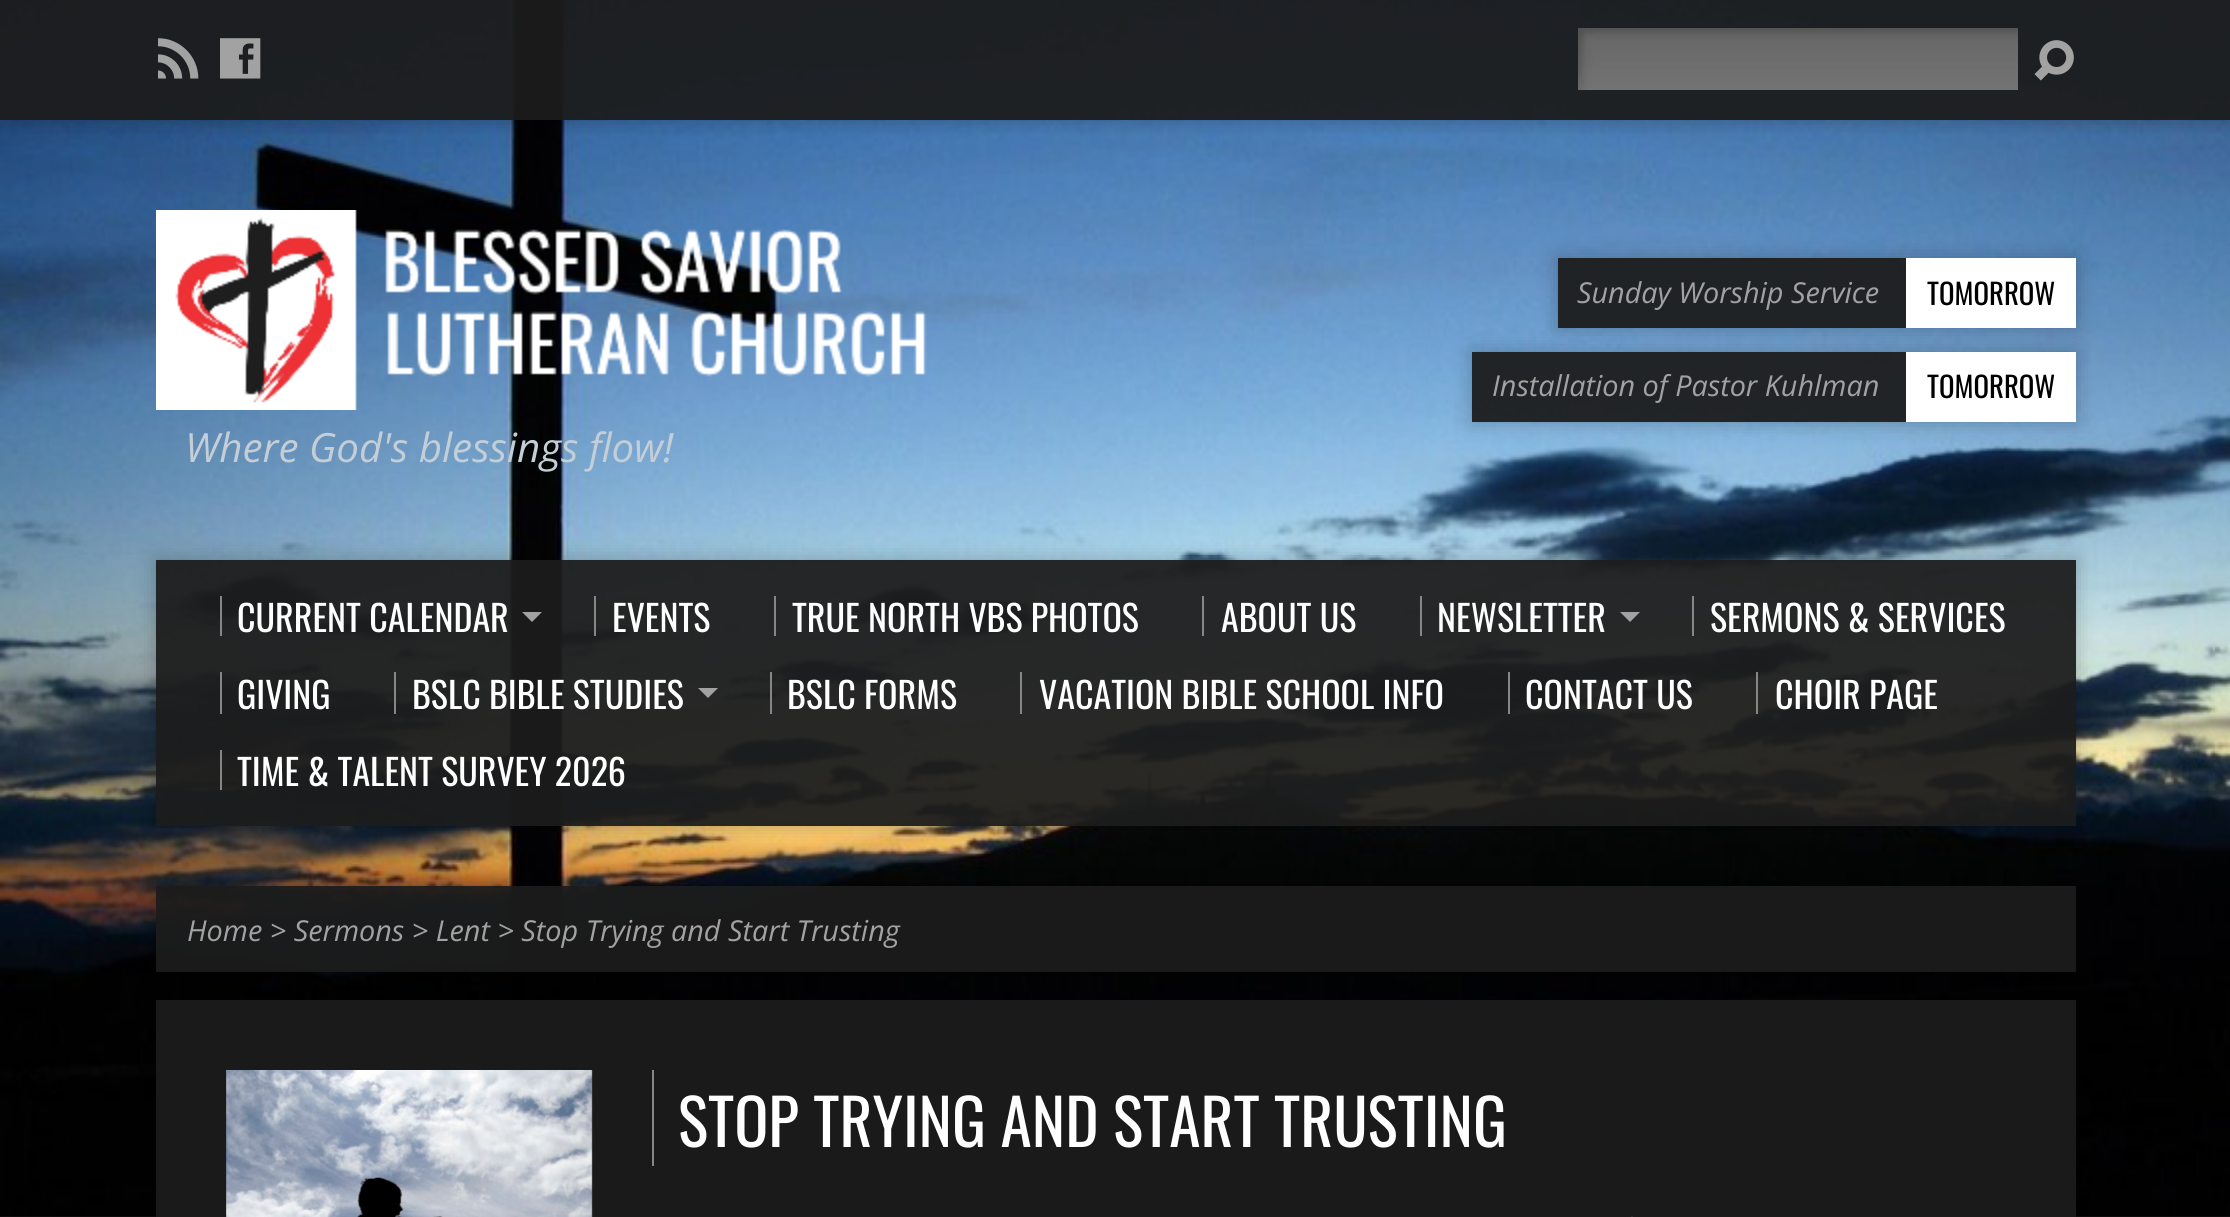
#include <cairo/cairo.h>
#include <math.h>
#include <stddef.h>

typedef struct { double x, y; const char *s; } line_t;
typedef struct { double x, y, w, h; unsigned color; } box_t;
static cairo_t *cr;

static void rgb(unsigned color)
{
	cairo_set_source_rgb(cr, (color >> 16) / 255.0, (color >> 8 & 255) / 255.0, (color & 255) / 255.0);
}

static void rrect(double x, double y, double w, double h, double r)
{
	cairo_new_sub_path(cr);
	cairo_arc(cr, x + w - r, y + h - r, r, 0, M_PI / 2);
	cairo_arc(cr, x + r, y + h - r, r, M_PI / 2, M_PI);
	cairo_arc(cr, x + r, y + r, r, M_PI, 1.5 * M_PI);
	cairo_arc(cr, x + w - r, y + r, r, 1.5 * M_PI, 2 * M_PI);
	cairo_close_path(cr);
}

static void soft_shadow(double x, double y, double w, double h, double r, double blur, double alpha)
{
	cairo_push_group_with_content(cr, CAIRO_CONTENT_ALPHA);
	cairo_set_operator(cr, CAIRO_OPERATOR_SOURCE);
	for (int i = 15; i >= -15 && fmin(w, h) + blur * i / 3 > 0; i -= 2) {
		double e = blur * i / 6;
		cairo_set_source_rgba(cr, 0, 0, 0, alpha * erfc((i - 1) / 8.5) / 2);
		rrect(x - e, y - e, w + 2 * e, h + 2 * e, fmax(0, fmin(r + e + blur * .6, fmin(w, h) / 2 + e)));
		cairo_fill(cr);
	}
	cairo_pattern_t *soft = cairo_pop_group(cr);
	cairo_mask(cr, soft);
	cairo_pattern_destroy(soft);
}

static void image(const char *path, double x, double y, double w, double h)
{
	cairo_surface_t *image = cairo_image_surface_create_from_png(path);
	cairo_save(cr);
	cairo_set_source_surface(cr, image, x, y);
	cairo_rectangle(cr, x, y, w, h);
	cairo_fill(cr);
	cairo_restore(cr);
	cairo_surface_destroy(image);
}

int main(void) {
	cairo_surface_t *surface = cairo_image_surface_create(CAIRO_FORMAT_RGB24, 2230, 1217);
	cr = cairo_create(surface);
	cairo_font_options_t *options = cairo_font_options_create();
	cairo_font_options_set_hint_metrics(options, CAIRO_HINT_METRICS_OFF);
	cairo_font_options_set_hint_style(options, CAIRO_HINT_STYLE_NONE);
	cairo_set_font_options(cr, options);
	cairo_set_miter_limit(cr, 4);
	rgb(0xffffff);
	cairo_paint(cr);
	image("img/1.png", 0, 0, 2230, 1217);
	cairo_save(cr);
	cairo_rectangle(cr, 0, 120, 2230, 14);
	cairo_clip(cr);
	rgb(0x000000);
	soft_shadow(0, 0, 2230, 120, 0, 10, 0.25);
	cairo_restore(cr);
	cairo_set_source_rgba(cr, 0.11, 0.11, 0.11, 0.94);
	cairo_rectangle(cr, 0, 0, 2230, 120);
	cairo_fill(cr);
	image("img/2.png", 158, 38, 41, 41);
	image("img/3.png", 220, 38, 41, 41);
	image("img/4.png", 1578, 28, 440, 62);
	image("img/5.png", 2034, 40, 40, 41);
	cairo_save(cr);
	cairo_set_fill_rule(cr, CAIRO_FILL_RULE_EVEN_ODD);
	cairo_new_path(cr);
	cairo_move_to(cr, 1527, 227);
	cairo_line_to(cr, 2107, 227);
	cairo_line_to(cr, 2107, 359);
	cairo_line_to(cr, 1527, 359);
	cairo_close_path(cr);
	cairo_move_to(cr, 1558, 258);
	cairo_line_to(cr, 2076, 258);
	cairo_line_to(cr, 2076, 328);
	cairo_line_to(cr, 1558, 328);
	cairo_close_path(cr);
	cairo_clip(cr);
	rgb(0x000000);
	soft_shadow(1558, 258, 518, 70, 0, 10, 0.25);
	cairo_restore(cr);
	cairo_rectangle(cr, 1558, 258, 348, 70);
	cairo_fill(cr);
	rgb(0xffffff);
	cairo_rectangle(cr, 1906, 258, 170, 70);
	cairo_fill(cr);
	cairo_save(cr);
	cairo_set_fill_rule(cr, CAIRO_FILL_RULE_EVEN_ODD);
	cairo_new_path(cr);
	cairo_move_to(cr, 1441, 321);
	cairo_line_to(cr, 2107, 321);
	cairo_line_to(cr, 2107, 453);
	cairo_line_to(cr, 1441, 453);
	cairo_close_path(cr);
	cairo_move_to(cr, 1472, 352);
	cairo_line_to(cr, 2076, 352);
	cairo_line_to(cr, 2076, 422);
	cairo_line_to(cr, 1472, 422);
	cairo_close_path(cr);
	cairo_clip(cr);
	rgb(0x000000);
	soft_shadow(1472, 352, 604, 70, 0, 10, 0.25);
	cairo_restore(cr);
	cairo_set_source_rgba(cr, 0.11, 0.11, 0.11, 0.94);
	cairo_rectangle(cr, 1472, 352, 434, 70);
	cairo_fill(cr);
	rgb(0xffffff);
	cairo_rectangle(cr, 1906, 352, 170, 70);
	cairo_fill(cr);
	image("img/6.png", 156, 210, 771, 200);
	cairo_save(cr);
	cairo_set_fill_rule(cr, CAIRO_FILL_RULE_EVEN_ODD);
	cairo_new_path(cr);
	cairo_move_to(cr, 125, 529);
	cairo_line_to(cr, 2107, 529);
	cairo_line_to(cr, 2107, 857);
	cairo_line_to(cr, 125, 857);
	cairo_close_path(cr);
	cairo_move_to(cr, 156, 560);
	cairo_line_to(cr, 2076, 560);
	cairo_line_to(cr, 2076, 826);
	cairo_line_to(cr, 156, 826);
	cairo_close_path(cr);
	cairo_clip(cr);
	rgb(0x000000);
	soft_shadow(156, 560, 1920, 266, 0, 10, 0.25);
	cairo_restore(cr);
	cairo_set_source_rgba(cr, 0.11, 0.11, 0.11, 0.94);
	cairo_rectangle(cr, 156, 560, 1920, 266);
	cairo_fill(cr);
	rgb(0x868686);
	cairo_rectangle(cr, 220, 596, 2, 40);
	cairo_fill(cr);
	rgb(0xa2a2a2);
	cairo_new_path(cr);
	cairo_move_to(cr, 522, 612);
	cairo_line_to(cr, 542, 612);
	cairo_line_to(cr, 532, 622);
	cairo_close_path(cr);
	cairo_fill(cr);
	{
		static const box_t items[] = {
			{594, 596, 2, 40, 0x868686},
			{774, 596, 2, 40, 0x868686},
			{1202, 596, 2, 40, 0x868686},
			{1420, 596, 2, 40, 0x868686},
		};
		for (size_t i = 0; i < sizeof items / sizeof *items; i++) {
			rgb(items[i].color);
			cairo_rectangle(cr, items[i].x, items[i].y, items[i].w, items[i].h);
			cairo_fill(cr);
		}
	}
	rgb(0xa2a2a2);
	cairo_new_path(cr);
	cairo_move_to(cr, 1620, 612);
	cairo_line_to(cr, 1640, 612);
	cairo_line_to(cr, 1630, 622);
	cairo_close_path(cr);
	cairo_fill(cr);
	{
		static const box_t items[] = {
			{1692, 596, 2, 40, 0x868686},
			{220, 672, 2, 42, 0x868686},
			{394, 672, 2, 42, 0x868686},
		};
		for (size_t i = 0; i < sizeof items / sizeof *items; i++) {
			rgb(items[i].color);
			cairo_rectangle(cr, items[i].x, items[i].y, items[i].w, items[i].h);
			cairo_fill(cr);
		}
	}
	rgb(0xa2a2a2);
	cairo_new_path(cr);
	cairo_move_to(cr, 698, 688);
	cairo_line_to(cr, 718, 688);
	cairo_line_to(cr, 708, 698);
	cairo_close_path(cr);
	cairo_fill(cr);
	{
		static const box_t items[] = {
			{770, 672, 2, 42, 0x868686},
			{1020, 672, 2, 42, 0x868686},
			{1508, 672, 2, 42, 0x868686},
			{1756, 672, 2, 42, 0x868686},
			{220, 750, 2, 40, 0x868686},
		};
		for (size_t i = 0; i < sizeof items / sizeof *items; i++) {
			rgb(items[i].color);
			cairo_rectangle(cr, items[i].x, items[i].y, items[i].w, items[i].h);
			cairo_fill(cr);
		}
	}
	cairo_save(cr);
	cairo_set_fill_rule(cr, CAIRO_FILL_RULE_EVEN_ODD);
	cairo_new_path(cr);
	cairo_move_to(cr, 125, 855);
	cairo_line_to(cr, 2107, 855);
	cairo_line_to(cr, 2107, 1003);
	cairo_line_to(cr, 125, 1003);
	cairo_close_path(cr);
	cairo_move_to(cr, 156, 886);
	cairo_line_to(cr, 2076, 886);
	cairo_line_to(cr, 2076, 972);
	cairo_line_to(cr, 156, 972);
	cairo_close_path(cr);
	cairo_clip(cr);
	rgb(0x000000);
	soft_shadow(156, 886, 1920, 86, 0, 10, 0.25);
	cairo_restore(cr);
	cairo_set_source_rgba(cr, 0.11, 0.11, 0.11, 0.94);
	cairo_rectangle(cr, 156, 886, 1920, 86);
	cairo_fill(cr);
	cairo_rectangle(cr, 156, 1000, 1920, 217);
	cairo_fill(cr);
	image("img/7.png", 226, 1070, 367, 147);
	rgb(0x868686);
	cairo_rectangle(cr, 652, 1070, 2, 96);
	cairo_fill(cr);
	rgb(0x2b2b2b);
	cairo_rectangle(cr, 1631, 1216, 2, 1);
	cairo_fill(cr);
	cairo_select_font_face(cr, "Open Sans", CAIRO_FONT_SLANT_ITALIC, CAIRO_FONT_WEIGHT_NORMAL);
	cairo_set_font_size(cr, 28.8);
	rgb(0xa2a2a2);
	cairo_move_to(cr, 1577, 303);
	cairo_show_text(cr, "Sunday Worship Service");
	cairo_select_font_face(cr, "Oswald", CAIRO_FONT_SLANT_NORMAL, CAIRO_FONT_WEIGHT_NORMAL);
	rgb(0x000000);
	cairo_move_to(cr, 1927, 305);
	cairo_show_text(cr, "TOMORROW");
	cairo_select_font_face(cr, "Open Sans", CAIRO_FONT_SLANT_ITALIC, CAIRO_FONT_WEIGHT_NORMAL);
	rgb(0xa2a2a2);
	cairo_move_to(cr, 1492, 396);
	cairo_show_text(cr, "Installation of Pastor Kuhlman");
	cairo_select_font_face(cr, "Oswald", CAIRO_FONT_SLANT_NORMAL, CAIRO_FONT_WEIGHT_NORMAL);
	rgb(0x000000);
	cairo_move_to(cr, 1927, 398);
	cairo_show_text(cr, "TOMORROW");
	cairo_select_font_face(cr, "Open Sans", CAIRO_FONT_SLANT_ITALIC, CAIRO_FONT_WEIGHT_NORMAL);
	cairo_set_font_size(cr, 40.25);
	rgb(0xc4ced7);
	cairo_move_to(cr, 185, 462);
	cairo_show_text(cr, "Where God's blessings flow!");
	cairo_select_font_face(cr, "Oswald", CAIRO_FONT_SLANT_NORMAL, CAIRO_FONT_WEIGHT_NORMAL);
	cairo_set_font_size(cr, 36);
	rgb(0xffffff);
	{
		static const line_t items[] = {
			{237, 632, "CURRENT CALENDAR"},
			{612, 632, "EVENTS"},
			{792, 632, "TRUE NORTH VBS PHOTOS"},
			{1221, 632, "ABOUT US"},
			{1437, 632, "NEWSLETTER"},
			{1710, 632, "SERMONS & SERVICES"},
			{237, 709, "GIVING"},
			{412, 709, "BSLC BIBLE STUDIES"},
			{787, 709, "BSLC FORMS"},
			{1039, 709, "VACATION BIBLE SCHOOL INFO"},
			{1525, 709, "CONTACT US"},
			{1775, 709, "CHOIR PAGE"},
			{237, 786, "TIME & TALENT SURVEY 2026"},
		};
		for (size_t i = 0; i < sizeof items / sizeof *items; i++) {
			cairo_move_to(cr, items[i].x, items[i].y);
			cairo_show_text(cr, items[i].s);
		}
	}
	cairo_select_font_face(cr, "Open Sans", CAIRO_FONT_SLANT_ITALIC, CAIRO_FONT_WEIGHT_NORMAL);
	cairo_set_font_size(cr, 28.8);
	rgb(0xa2a2a2);
	cairo_move_to(cr, 187, 941);
	cairo_show_text(cr, "Home > Sermons > Lent > Stop Trying and Start Trusting");
	cairo_select_font_face(cr, "Oswald", CAIRO_FONT_SLANT_NORMAL, CAIRO_FONT_WEIGHT_NORMAL);
	cairo_set_font_size(cr, 63.4);
	rgb(0xffffff);
	cairo_move_to(cr, 678, 1147);
	cairo_show_text(cr, "STOP TRYING AND START TRUSTING");
	cairo_surface_write_to_png(surface, "page.png");
	cairo_font_options_destroy(options);
	cairo_destroy(cr);
	cairo_surface_destroy(surface);
	return 0;
}
